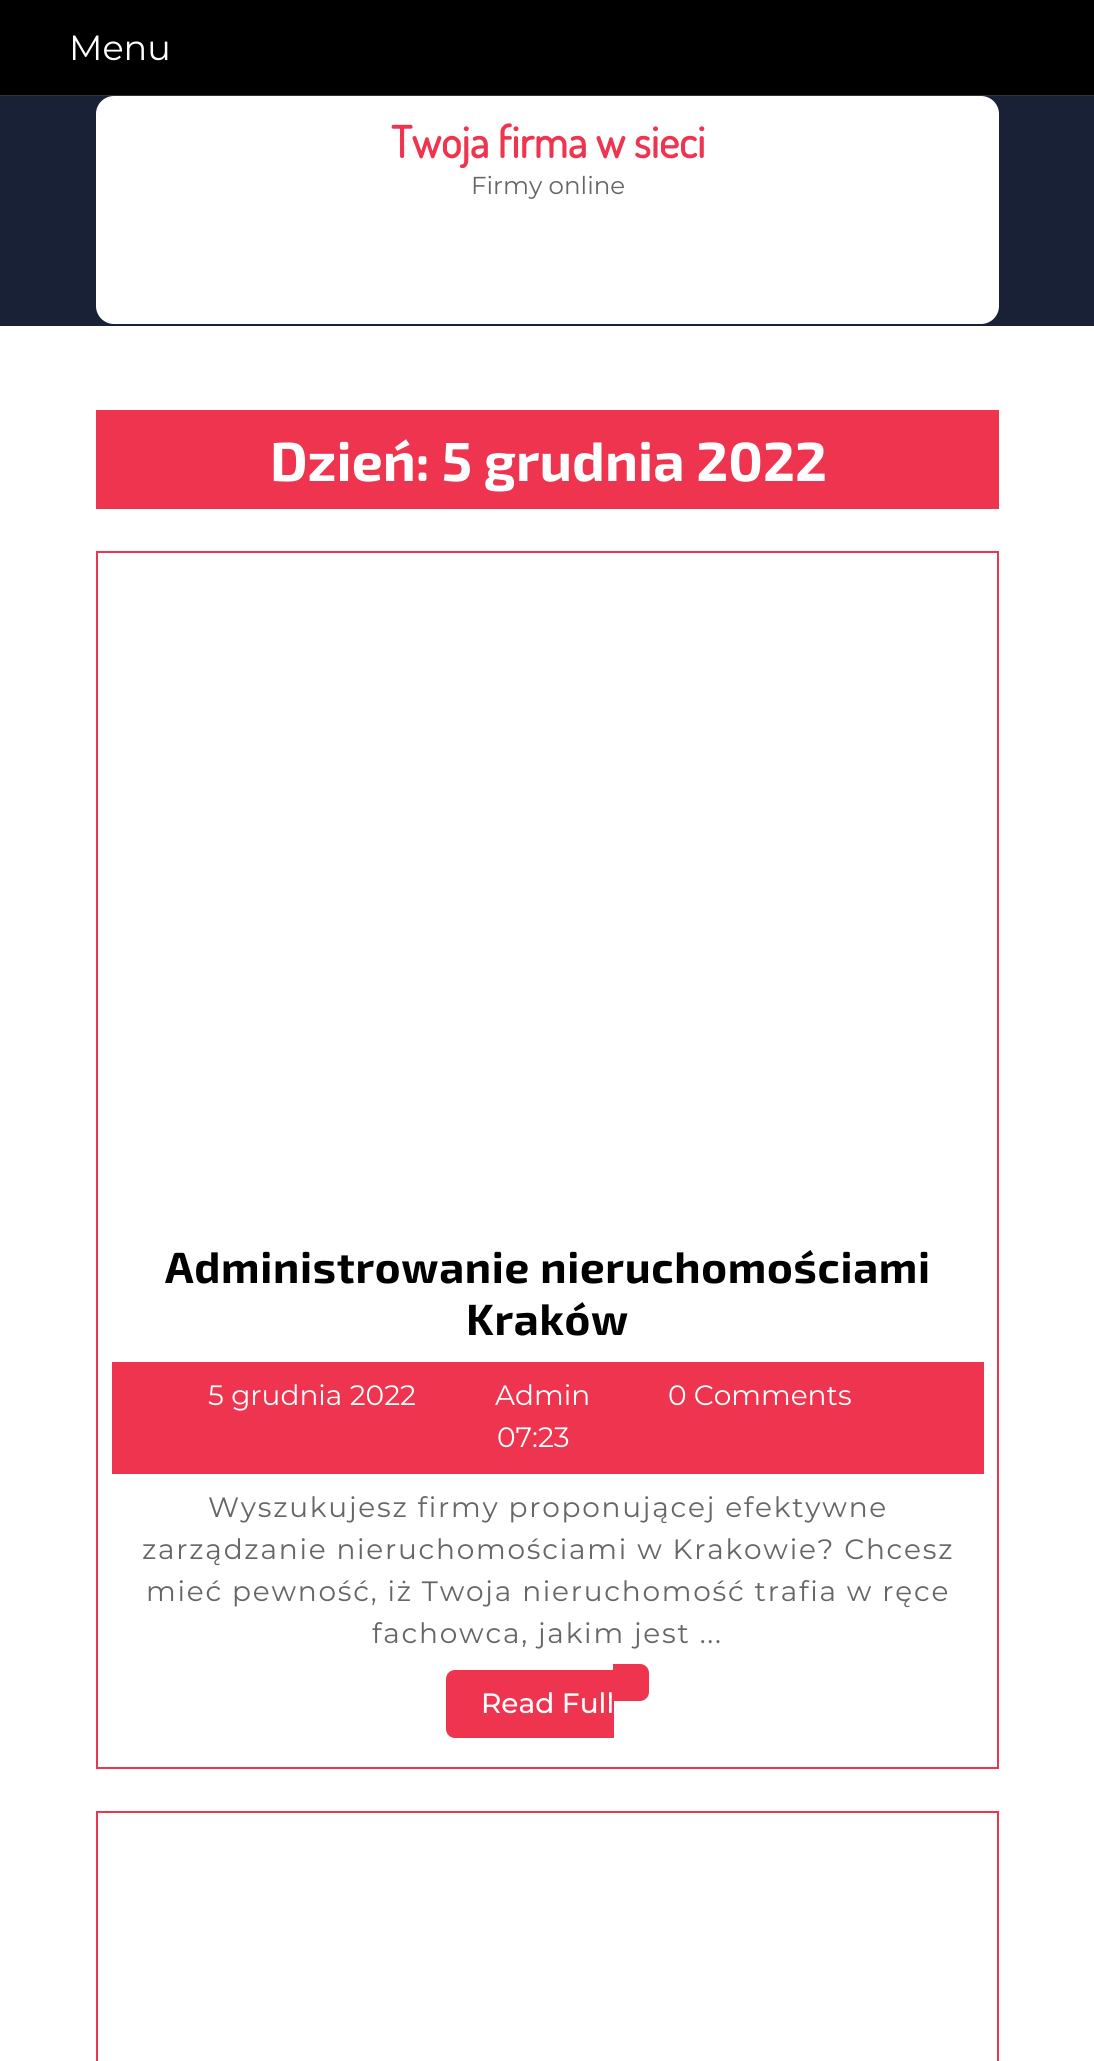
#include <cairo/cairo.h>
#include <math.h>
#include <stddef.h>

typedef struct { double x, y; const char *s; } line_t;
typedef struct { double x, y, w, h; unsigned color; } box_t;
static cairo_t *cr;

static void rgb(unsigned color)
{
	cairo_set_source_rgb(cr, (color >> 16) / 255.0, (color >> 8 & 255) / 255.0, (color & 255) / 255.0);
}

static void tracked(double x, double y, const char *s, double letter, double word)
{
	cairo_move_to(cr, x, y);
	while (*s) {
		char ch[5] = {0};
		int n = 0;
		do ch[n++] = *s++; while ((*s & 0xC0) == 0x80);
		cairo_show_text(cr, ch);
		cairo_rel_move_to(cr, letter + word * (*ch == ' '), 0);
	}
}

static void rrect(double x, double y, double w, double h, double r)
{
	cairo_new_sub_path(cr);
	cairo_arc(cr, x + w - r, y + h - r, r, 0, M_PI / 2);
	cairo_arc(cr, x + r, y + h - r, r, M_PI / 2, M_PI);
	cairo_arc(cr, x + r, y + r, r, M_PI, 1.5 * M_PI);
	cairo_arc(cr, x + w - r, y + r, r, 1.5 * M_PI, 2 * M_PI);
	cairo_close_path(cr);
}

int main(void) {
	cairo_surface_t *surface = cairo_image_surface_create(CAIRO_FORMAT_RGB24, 1094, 2061);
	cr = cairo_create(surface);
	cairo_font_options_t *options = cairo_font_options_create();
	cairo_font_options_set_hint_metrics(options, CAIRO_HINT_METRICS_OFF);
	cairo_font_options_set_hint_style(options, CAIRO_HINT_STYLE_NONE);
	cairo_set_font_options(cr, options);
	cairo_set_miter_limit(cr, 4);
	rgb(0xffffff);
	cairo_paint(cr);
	{
		static const box_t items[] = {
			{0, 0, 1094, 95, 0x000000},
			{0, 95, 1094, 1, 0x333333},
			{0, 96, 1094, 230, 0x192136},
		};
		for (size_t i = 0; i < sizeof items / sizeof *items; i++) {
			rgb(items[i].color);
			cairo_rectangle(cr, items[i].x, items[i].y, items[i].w, items[i].h);
			cairo_fill(cr);
		}
	}
	rgb(0xffffff);
	rrect(96, 96, 903, 228, 18);
	cairo_fill(cr);
	rgb(0xee344e);
	cairo_rectangle(cr, 96, 410, 903, 99);
	cairo_fill(cr);
	cairo_rectangle(cr, 97, 552, 901, 1216);
	cairo_stroke(cr);
	cairo_rectangle(cr, 112, 1362, 872, 112);
	cairo_fill(cr);
	cairo_new_path(cr);
	cairo_move_to(cr, 455, 1670);
	cairo_line_to(cr, 614, 1670);
	cairo_line_to(cr, 614, 1738);
	cairo_line_to(cr, 455, 1738);
	cairo_curve_to(cr, 450, 1738, 446, 1734, 446, 1729);
	cairo_line_to(cr, 446, 1679);
	cairo_curve_to(cr, 446, 1674, 450, 1670, 455, 1670);
	cairo_close_path(cr);
	cairo_fill(cr);
	cairo_new_path(cr);
	cairo_move_to(cr, 613, 1664);
	cairo_line_to(cr, 640, 1664);
	cairo_curve_to(cr, 645, 1664, 649, 1668, 649, 1673);
	cairo_line_to(cr, 649, 1692);
	cairo_curve_to(cr, 649, 1697, 645, 1701, 640, 1701);
	cairo_line_to(cr, 613, 1701);
	cairo_close_path(cr);
	cairo_fill(cr);
	cairo_rectangle(cr, 97, 1812, 901, 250);
	cairo_stroke(cr);
	cairo_select_font_face(cr, "Montserrat", CAIRO_FONT_SLANT_NORMAL, CAIRO_FONT_WEIGHT_NORMAL);
	cairo_set_font_size(cr, 35);
	rgb(0xffffff);
	cairo_move_to(cr, 69, 60);
	cairo_show_text(cr, "Menu");
	cairo_select_font_face(cr, "Dosis", CAIRO_FONT_SLANT_NORMAL, CAIRO_FONT_WEIGHT_BOLD);
	cairo_set_font_size(cr, 43.75);
	rgb(0xee344e);
	cairo_move_to(cr, 391, 158);
	cairo_show_text(cr, "Twoja firma w sieci");
	cairo_select_font_face(cr, "Montserrat", CAIRO_FONT_SLANT_NORMAL, CAIRO_FONT_WEIGHT_NORMAL);
	cairo_set_font_size(cr, 24.5);
	rgb(0x666666);
	cairo_move_to(cr, 471, 194);
	cairo_show_text(cr, "Firmy online");
	cairo_select_font_face(cr, "Exo 2", CAIRO_FONT_SLANT_NORMAL, CAIRO_FONT_WEIGHT_BOLD);
	cairo_set_font_size(cr, 55);
	rgb(0xffffff);
	cairo_move_to(cr, 270, 481);
	cairo_show_text(cr, "Dzień: 5 grudnia 2022");
	cairo_set_font_size(cr, 43.75);
	rgb(0x000000);
	tracked(165, 1283, "Administrowanie nieruchomościami", 0.7, 0);
	tracked(466, 1335, "Kraków", 0.7, 0);
	cairo_select_font_face(cr, "Montserrat", CAIRO_FONT_SLANT_NORMAL, CAIRO_FONT_WEIGHT_NORMAL);
	cairo_set_font_size(cr, 28);
	rgb(0xffffff);
	{
		static const line_t items[] = {
			{208, 1405, "5 grudnia 2022"},
			{495, 1405, "Admin"},
			{668, 1405, "0 Comments"},
			{497, 1447, "07:23"},
		};
		for (size_t i = 0; i < sizeof items / sizeof *items; i++) {
			cairo_move_to(cr, items[i].x, items[i].y);
			cairo_show_text(cr, items[i].s);
		}
	}
	rgb(0x666666);
	{
		static const line_t items[] = {
			{208, 1517, "Wyszukujesz firmy proponującej efektywne"},
			{142, 1559, "zarządzanie nieruchomościami w Krakowie? Chcesz"},
			{146, 1601, "mieć pewność, iż Twoja nieruchomość trafia w ręce"},
			{372, 1643, "fachowca, jakim jest ..."},
		};
		for (size_t i = 0; i < sizeof items / sizeof *items; i++) {
			tracked(items[i].x, items[i].y, items[i].s, 1.75, 0);
		}
	}
	cairo_select_font_face(cr, "Montserrat Medium", CAIRO_FONT_SLANT_NORMAL, CAIRO_FONT_WEIGHT_NORMAL);
	rgb(0xffffff);
	cairo_move_to(cr, 481, 1713);
	cairo_show_text(cr, "Read Full");
	cairo_surface_write_to_png(surface, "page.png");
	cairo_font_options_destroy(options);
	cairo_destroy(cr);
	cairo_surface_destroy(surface);
	return 0;
}
